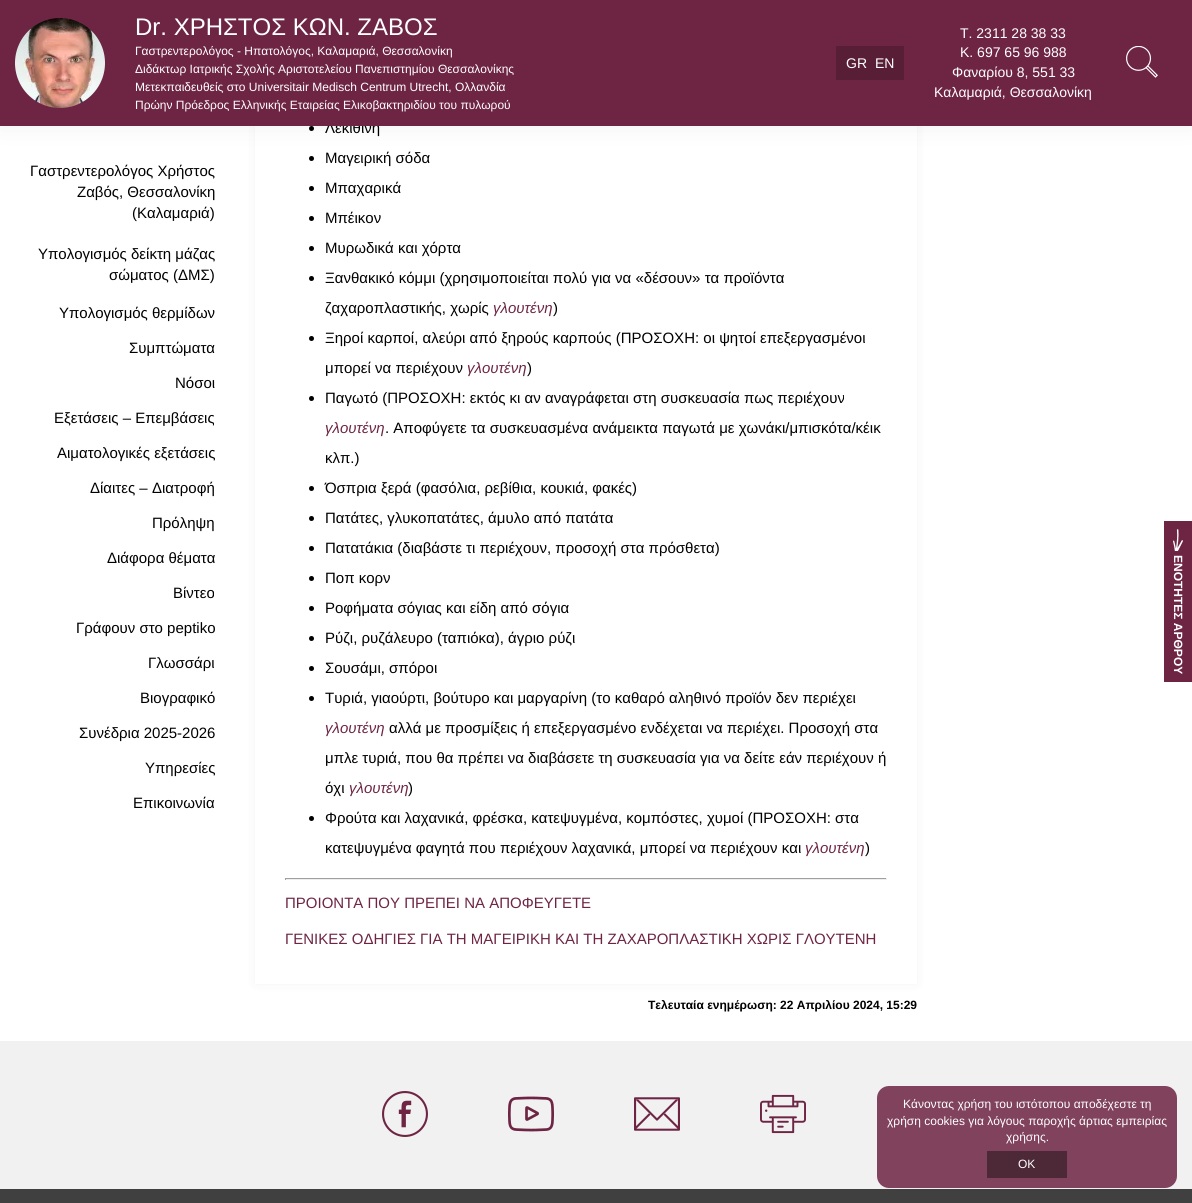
#include <cairo/cairo.h>
#include <math.h>
#include <stddef.h>

typedef struct { double x, y; const char *s; } line_t;
typedef struct { double x, y, w, h; unsigned color; } box_t;
static cairo_t *cr;

static void rgb(unsigned color)
{
	cairo_set_source_rgb(cr, (color >> 16) / 255.0, (color >> 8 & 255) / 255.0, (color & 255) / 255.0);
}

static void rrect(double x, double y, double w, double h, double r)
{
	cairo_new_sub_path(cr);
	cairo_arc(cr, x + w - r, y + h - r, r, 0, M_PI / 2);
	cairo_arc(cr, x + r, y + h - r, r, M_PI / 2, M_PI);
	cairo_arc(cr, x + r, y + r, r, M_PI, 1.5 * M_PI);
	cairo_arc(cr, x + w - r, y + r, r, 1.5 * M_PI, 2 * M_PI);
	cairo_close_path(cr);
}

static void soft_shadow(double x, double y, double w, double h, double r, double blur, double alpha)
{
	cairo_push_group_with_content(cr, CAIRO_CONTENT_ALPHA);
	cairo_set_operator(cr, CAIRO_OPERATOR_SOURCE);
	for (int i = 15; i >= -15 && fmin(w, h) + blur * i / 3 > 0; i -= 2) {
		double e = blur * i / 6;
		cairo_set_source_rgba(cr, 0, 0, 0, alpha * erfc((i - 1) / 8.5) / 2);
		rrect(x - e, y - e, w + 2 * e, h + 2 * e, fmax(0, fmin(r + e + blur * .6, fmin(w, h) / 2 + e)));
		cairo_fill(cr);
	}
	cairo_pattern_t *soft = cairo_pop_group(cr);
	cairo_mask(cr, soft);
	cairo_pattern_destroy(soft);
}

static void image(const char *path, double x, double y, double w, double h)
{
	cairo_surface_t *image = cairo_image_surface_create_from_png(path);
	cairo_save(cr);
	cairo_set_source_surface(cr, image, x, y);
	cairo_rectangle(cr, x, y, w, h);
	cairo_fill(cr);
	cairo_restore(cr);
	cairo_surface_destroy(image);
}

int main(void) {
	cairo_surface_t *surface = cairo_image_surface_create(CAIRO_FORMAT_RGB24, 1192, 1203);
	cr = cairo_create(surface);
	cairo_font_options_t *options = cairo_font_options_create();
	cairo_font_options_set_hint_metrics(options, CAIRO_HINT_METRICS_OFF);
	cairo_font_options_set_hint_style(options, CAIRO_HINT_STYLE_NONE);
	cairo_set_font_options(cr, options);
	cairo_set_miter_limit(cr, 4);
	rgb(0xffffff);
	cairo_paint(cr);
	rgb(0x000000);
	soft_shadow(255, -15, 662, 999, 0, 5, 0.05);
	rgb(0xffffff);
	cairo_rectangle(cr, 255, 126, 662, 858);
	cairo_fill(cr);
	rgb(0x000000);
	cairo_arc(cr, 311.5, 128.5, 2.5, 0, 2 * M_PI);
	cairo_fill(cr);
	cairo_arc(cr, 311.5, 158.5, 2.5, 0, 2 * M_PI);
	cairo_fill(cr);
	rgb(0x000000);
	soft_shadow(0, 0, 1192, 126, 0, 13, 0.06);
	rgb(0x000000);
	cairo_arc(cr, 311.5, 188.5, 2.5, 0, 2 * M_PI);
	cairo_fill(cr);
	cairo_arc(cr, 311.5, 218.5, 2.5, 0, 2 * M_PI);
	cairo_fill(cr);
	cairo_arc(cr, 311.5, 248.5, 2.5, 0, 2 * M_PI);
	cairo_fill(cr);
	cairo_arc(cr, 311.5, 278.5, 2.5, 0, 2 * M_PI);
	cairo_fill(cr);
	cairo_arc(cr, 311.5, 338.5, 2.5, 0, 2 * M_PI);
	cairo_fill(cr);
	cairo_arc(cr, 311.5, 398.5, 2.5, 0, 2 * M_PI);
	cairo_fill(cr);
	cairo_arc(cr, 311.5, 488.5, 2.5, 0, 2 * M_PI);
	cairo_fill(cr);
	cairo_arc(cr, 311.5, 518.5, 2.5, 0, 2 * M_PI);
	cairo_fill(cr);
	cairo_arc(cr, 311.5, 548.5, 2.5, 0, 2 * M_PI);
	cairo_fill(cr);
	cairo_arc(cr, 311.5, 578.5, 2.5, 0, 2 * M_PI);
	cairo_fill(cr);
	cairo_arc(cr, 311.5, 608.5, 2.5, 0, 2 * M_PI);
	cairo_fill(cr);
	cairo_arc(cr, 311.5, 638.5, 2.5, 0, 2 * M_PI);
	cairo_fill(cr);
	cairo_arc(cr, 311.5, 668.5, 2.5, 0, 2 * M_PI);
	cairo_fill(cr);
	cairo_arc(cr, 311.5, 698.5, 2.5, 0, 2 * M_PI);
	cairo_fill(cr);
	cairo_arc(cr, 311.5, 818.5, 2.5, 0, 2 * M_PI);
	cairo_fill(cr);
	{
		static const box_t items[] = {
			{285, 878, 602, 1, 0x9f9f9f},
			{886, 878, 1, 2, 0xeeeeee},
			{285, 879, 602, 1, 0xeeeeee},
			{285, 878, 1, 2, 0x9f9f9f},
			{1164, 521, 28, 161, 0x6e2544},
		};
		for (size_t i = 0; i < sizeof items / sizeof *items; i++) {
			rgb(items[i].color);
			cairo_rectangle(cr, items[i].x, items[i].y, items[i].w, items[i].h);
			cairo_fill(cr);
		}
	}
	image("img/3.png", 1173, 529, 10, 22);
	rgb(0xf1f1f1);
	cairo_rectangle(cr, 0, 1041, 1192, 148);
	cairo_fill(cr);
	image("img/4.png", 382, 1091, 46, 46);
	image("img/5.png", 508, 1096, 46, 36);
	image("img/6.png", 634, 1097, 46, 34);
	image("img/7.png", 760, 1094, 46, 40);
	rgb(0x404040);
	cairo_rectangle(cr, 0, 1189, 1192, 14);
	cairo_fill(cr);
	rgb(0x80425c);
	rrect(877, 1086, 300, 102, 12);
	cairo_fill(cr);
	rgb(0x4d2837);
	cairo_rectangle(cr, 987, 1151, 80, 27);
	cairo_fill(cr);
	cairo_select_font_face(cr, "Liberation Sans", CAIRO_FONT_SLANT_NORMAL, CAIRO_FONT_WEIGHT_NORMAL);
	cairo_set_font_size(cr, 15);
	rgb(0x000000);
	{
		static const line_t items[] = {
			{30, 176, "Γαστρεντερολόγος Χρήστος"},
			{77, 197, "Ζαβός, Θεσσαλονίκη"},
			{132, 218, "(Καλαμαριά)"},
			{38, 259, "Υπολογισμός δείκτη μάζας"},
			{109, 280, "σώματος (ΔΜΣ)"},
			{59, 318, "Υπολογισμός θερμίδων"},
			{129, 353, "Συμπτώματα"},
			{175, 388, "Νόσοι"},
			{54, 423, "Εξετάσεις – Επεμβάσεις"},
			{57, 458, "Αιματολογικές εξετάσεις"},
			{90, 493, "Δίαιτες – Διατροφή"},
			{152, 528, "Πρόληψη"},
			{107, 563, "Διάφορα θέματα"},
			{173, 598, "Βίντεο"},
			{76, 633, "Γράφουν στο peptiko"},
			{148, 668, "Γλωσσάρι"},
			{140, 703, "Βιογραφικό"},
			{79, 738, "Συνέδρια 2025-2026"},
			{145, 773, "Υπηρεσίες"},
			{133, 808, "Επικοινωνία"},
			{325, 133, "Λεκιθίνη"},
		};
		for (size_t i = 0; i < sizeof items / sizeof *items; i++) {
			cairo_move_to(cr, items[i].x, items[i].y);
			cairo_show_text(cr, items[i].s);
		}
	}
	rgb(0x6e2544);
	cairo_rectangle(cr, 0, 0, 1192, 126);
	cairo_fill(cr);
	image("img/2.png", 1126, 46, 32, 32);
	cairo_set_font_size(cr, 14);
	rgb(0xffffff);
	{
		static const line_t items[] = {
			{934, 97, "Καλαμαριά, Θεσσαλονίκη"},
			{952, 77, "Φαναρίου 8, 551 33"},
			{960, 57, "Κ. 697 65 96 988"},
			{960, 38, "Τ. 2311 28 38 33"},
		};
		for (size_t i = 0; i < sizeof items / sizeof *items; i++) {
			cairo_move_to(cr, items[i].x, items[i].y);
			cairo_show_text(cr, items[i].s);
		}
	}
	rgb(0x581e36);
	cairo_rectangle(cr, 836, 46, 68, 34);
	cairo_fill(cr);
	rgb(0xffffff);
	cairo_move_to(cr, 875, 68);
	cairo_show_text(cr, "EN");
	cairo_move_to(cr, 846, 68);
	cairo_show_text(cr, "GR");
	cairo_set_font_size(cr, 12);
	{
		static const line_t items[] = {
			{135, 109, "Πρώην Πρόεδρος Ελληνικής Εταιρείας Ελικοβακτηριδίου του πυλωρού"},
			{135, 91, "Μετεκπαιδευθείς στο Universitair Medisch Centrum Utrecht, Ολλανδία"},
			{135, 73, "Διδάκτωρ Ιατρικής Σχολής Αριστοτελείου Πανεπιστημίου Θεσσαλονίκης"},
			{135, 55, "Γαστρεντερολόγος - Ηπατολόγος, Καλαμαριά, Θεσσαλονίκη"},
		};
		for (size_t i = 0; i < sizeof items / sizeof *items; i++) {
			cairo_move_to(cr, items[i].x, items[i].y);
			cairo_show_text(cr, items[i].s);
		}
	}
	cairo_set_font_size(cr, 24);
	cairo_move_to(cr, 135, 35);
	cairo_show_text(cr, "Dr. ΧΡΗΣΤΟΣ ΚΩΝ. ΖΑΒΟΣ");
	image("img/1.png", 15, 18, 90, 90);
	cairo_set_font_size(cr, 15);
	rgb(0x000000);
	{
		static const line_t items[] = {
			{325, 163, "Μαγειρική σόδα"},
			{325, 193, "Μπαχαρικά"},
			{325, 223, "Μπέικον"},
			{325, 253, "Μυρωδικά και χόρτα"},
			{325, 283, "Ξανθακικό κόμμι (χρησιμοποιείται πολύ για να «δέσουν» τα προϊόντα"},
			{325, 313, "ζαχαροπλαστικής, χωρίς"},
		};
		for (size_t i = 0; i < sizeof items / sizeof *items; i++) {
			cairo_move_to(cr, items[i].x, items[i].y);
			cairo_show_text(cr, items[i].s);
		}
	}
	cairo_select_font_face(cr, "Liberation Sans", CAIRO_FONT_SLANT_ITALIC, CAIRO_FONT_WEIGHT_NORMAL);
	rgb(0x6e2544);
	cairo_move_to(cr, 493, 313);
	cairo_show_text(cr, "γλουτένη");
	cairo_select_font_face(cr, "Liberation Sans", CAIRO_FONT_SLANT_NORMAL, CAIRO_FONT_WEIGHT_NORMAL);
	rgb(0x000000);
	{
		static const line_t items[] = {
			{553, 313, ")"},
			{325, 343, "Ξηροί καρποί, αλεύρι από ξηρούς καρπούς (ΠΡΟΣΟΧΗ: οι ψητοί επεξεργασμένοι"},
			{325, 373, "μπορεί να περιέχουν"},
		};
		for (size_t i = 0; i < sizeof items / sizeof *items; i++) {
			cairo_move_to(cr, items[i].x, items[i].y);
			cairo_show_text(cr, items[i].s);
		}
	}
	cairo_select_font_face(cr, "Liberation Sans", CAIRO_FONT_SLANT_ITALIC, CAIRO_FONT_WEIGHT_NORMAL);
	rgb(0x6e2544);
	cairo_move_to(cr, 467, 373);
	cairo_show_text(cr, "γλουτένη");
	cairo_select_font_face(cr, "Liberation Sans", CAIRO_FONT_SLANT_NORMAL, CAIRO_FONT_WEIGHT_NORMAL);
	rgb(0x000000);
	cairo_move_to(cr, 527, 373);
	cairo_show_text(cr, ")");
	cairo_move_to(cr, 325, 403);
	cairo_show_text(cr, "Παγωτό (ΠΡΟΣΟΧΗ: εκτός κι αν αναγράφεται στη συσκευασία πως περιέχουν");
	cairo_select_font_face(cr, "Liberation Sans", CAIRO_FONT_SLANT_ITALIC, CAIRO_FONT_WEIGHT_NORMAL);
	rgb(0x6e2544);
	cairo_move_to(cr, 325, 433);
	cairo_show_text(cr, "γλουτένη");
	cairo_select_font_face(cr, "Liberation Sans", CAIRO_FONT_SLANT_NORMAL, CAIRO_FONT_WEIGHT_NORMAL);
	rgb(0x000000);
	{
		static const line_t items[] = {
			{385, 433, ". Αποφύγετε τα συσκευασμένα ανάμεικτα παγωτά με χωνάκι/μπισκότα/κέικ"},
			{325, 463, "κλπ.)"},
			{325, 493, "Όσπρια ξερά (φασόλια, ρεβίθια, κουκιά, φακές)"},
			{325, 523, "Πατάτες, γλυκοπατάτες, άμυλο από πατάτα"},
			{325, 553, "Πατατάκια (διαβάστε τι περιέχουν, προσοχή στα πρόσθετα)"},
			{325, 583, "Ποπ κορν"},
			{325, 613, "Ροφήματα σόγιας και είδη από σόγια"},
			{325, 643, "Ρύζι, ρυζάλευρο (ταπιόκα), άγριο ρύζι"},
			{325, 673, "Σουσάμι, σπόροι"},
			{325, 703, "Τυριά, γιαούρτι, βούτυρο και μαργαρίνη (το καθαρό αληθινό προϊόν δεν περιέχει"},
		};
		for (size_t i = 0; i < sizeof items / sizeof *items; i++) {
			cairo_move_to(cr, items[i].x, items[i].y);
			cairo_show_text(cr, items[i].s);
		}
	}
	cairo_select_font_face(cr, "Liberation Sans", CAIRO_FONT_SLANT_ITALIC, CAIRO_FONT_WEIGHT_NORMAL);
	rgb(0x6e2544);
	cairo_move_to(cr, 325, 733);
	cairo_show_text(cr, "γλουτένη");
	cairo_select_font_face(cr, "Liberation Sans", CAIRO_FONT_SLANT_NORMAL, CAIRO_FONT_WEIGHT_NORMAL);
	rgb(0x000000);
	{
		static const line_t items[] = {
			{389, 733, "αλλά με προσμίξεις ή επεξεργασμένο ενδέχεται να περιέχει. Προσοχή στα"},
			{325, 763, "μπλε τυριά, που θα πρέπει να διαβάσετε τη συσκευασία για να δείτε εάν περιέχουν ή"},
			{325, 793, "όχι"},
		};
		for (size_t i = 0; i < sizeof items / sizeof *items; i++) {
			cairo_move_to(cr, items[i].x, items[i].y);
			cairo_show_text(cr, items[i].s);
		}
	}
	cairo_select_font_face(cr, "Liberation Sans", CAIRO_FONT_SLANT_ITALIC, CAIRO_FONT_WEIGHT_NORMAL);
	rgb(0x6e2544);
	cairo_move_to(cr, 349, 793);
	cairo_show_text(cr, "γλουτένη");
	cairo_select_font_face(cr, "Liberation Sans", CAIRO_FONT_SLANT_NORMAL, CAIRO_FONT_WEIGHT_NORMAL);
	rgb(0x000000);
	{
		static const line_t items[] = {
			{408, 793, ")"},
			{325, 823, "Φρούτα και λαχανικά, φρέσκα, κατεψυγμένα, κομπόστες, χυμοί (ΠΡΟΣΟΧΗ: στα"},
			{325, 853, "κατεψυγμένα φαγητά που περιέχουν λαχανικά, μπορεί να περιέχουν και"},
		};
		for (size_t i = 0; i < sizeof items / sizeof *items; i++) {
			cairo_move_to(cr, items[i].x, items[i].y);
			cairo_show_text(cr, items[i].s);
		}
	}
	cairo_select_font_face(cr, "Liberation Sans", CAIRO_FONT_SLANT_ITALIC, CAIRO_FONT_WEIGHT_NORMAL);
	rgb(0x6e2544);
	cairo_move_to(cr, 805, 853);
	cairo_show_text(cr, "γλουτένη");
	cairo_select_font_face(cr, "Liberation Sans", CAIRO_FONT_SLANT_NORMAL, CAIRO_FONT_WEIGHT_NORMAL);
	rgb(0x000000);
	cairo_move_to(cr, 865, 853);
	cairo_show_text(cr, ")");
	rgb(0x6e2544);
	cairo_move_to(cr, 285, 908);
	cairo_show_text(cr, "ΠΡΟΙΟΝΤΑ ΠΟΥ ΠΡΕΠΕΙ ΝΑ ΑΠΟΦΕΥΓΕΤΕ");
	cairo_move_to(cr, 285, 944);
	cairo_show_text(cr, "ΓΕΝΙΚΕΣ ΟΔΗΓΙΕΣ ΓΙΑ ΤΗ ΜΑΓΕΙΡΙΚΗ ΚΑΙ ΤΗ ΖΑΧΑΡΟΠΛΑΣΤΙΚΗ ΧΩΡΙΣ ΓΛΟΥΤΕΝΗ");
	cairo_select_font_face(cr, "Liberation Sans", CAIRO_FONT_SLANT_NORMAL, CAIRO_FONT_WEIGHT_BOLD);
	cairo_set_font_size(cr, 12);
	rgb(0x000000);
	cairo_move_to(cr, 648, 1009);
	cairo_show_text(cr, "Τελευταία ενημέρωση: 22 Απριλίου 2024, 15:29");
	rgb(0xffffff);
	cairo_save(cr);
	cairo_translate(cr, 1174, 555);
	cairo_rotate(cr, 90 * M_PI / 180);
	cairo_move_to(cr, 0, 0);
	cairo_show_text(cr, "ΕΝΟΤΗΤΕΣ ΑΡΘΡΟΥ");
	cairo_restore(cr);
	cairo_select_font_face(cr, "Liberation Sans", CAIRO_FONT_SLANT_NORMAL, CAIRO_FONT_WEIGHT_NORMAL);
	{
		static const line_t items[] = {
			{903, 1108, "Κάνοντας χρήση του ιστότοπου αποδέχεστε τη"},
			{887, 1125, "χρήση cookies για λόγους παροχής άρτιας εμπειρίας"},
			{1006, 1141, "χρήσης."},
			{1018, 1168, "OK"},
		};
		for (size_t i = 0; i < sizeof items / sizeof *items; i++) {
			cairo_move_to(cr, items[i].x, items[i].y);
			cairo_show_text(cr, items[i].s);
		}
	}
	cairo_surface_write_to_png(surface, "page.png");
	cairo_font_options_destroy(options);
	cairo_destroy(cr);
	cairo_surface_destroy(surface);
	return 0;
}
